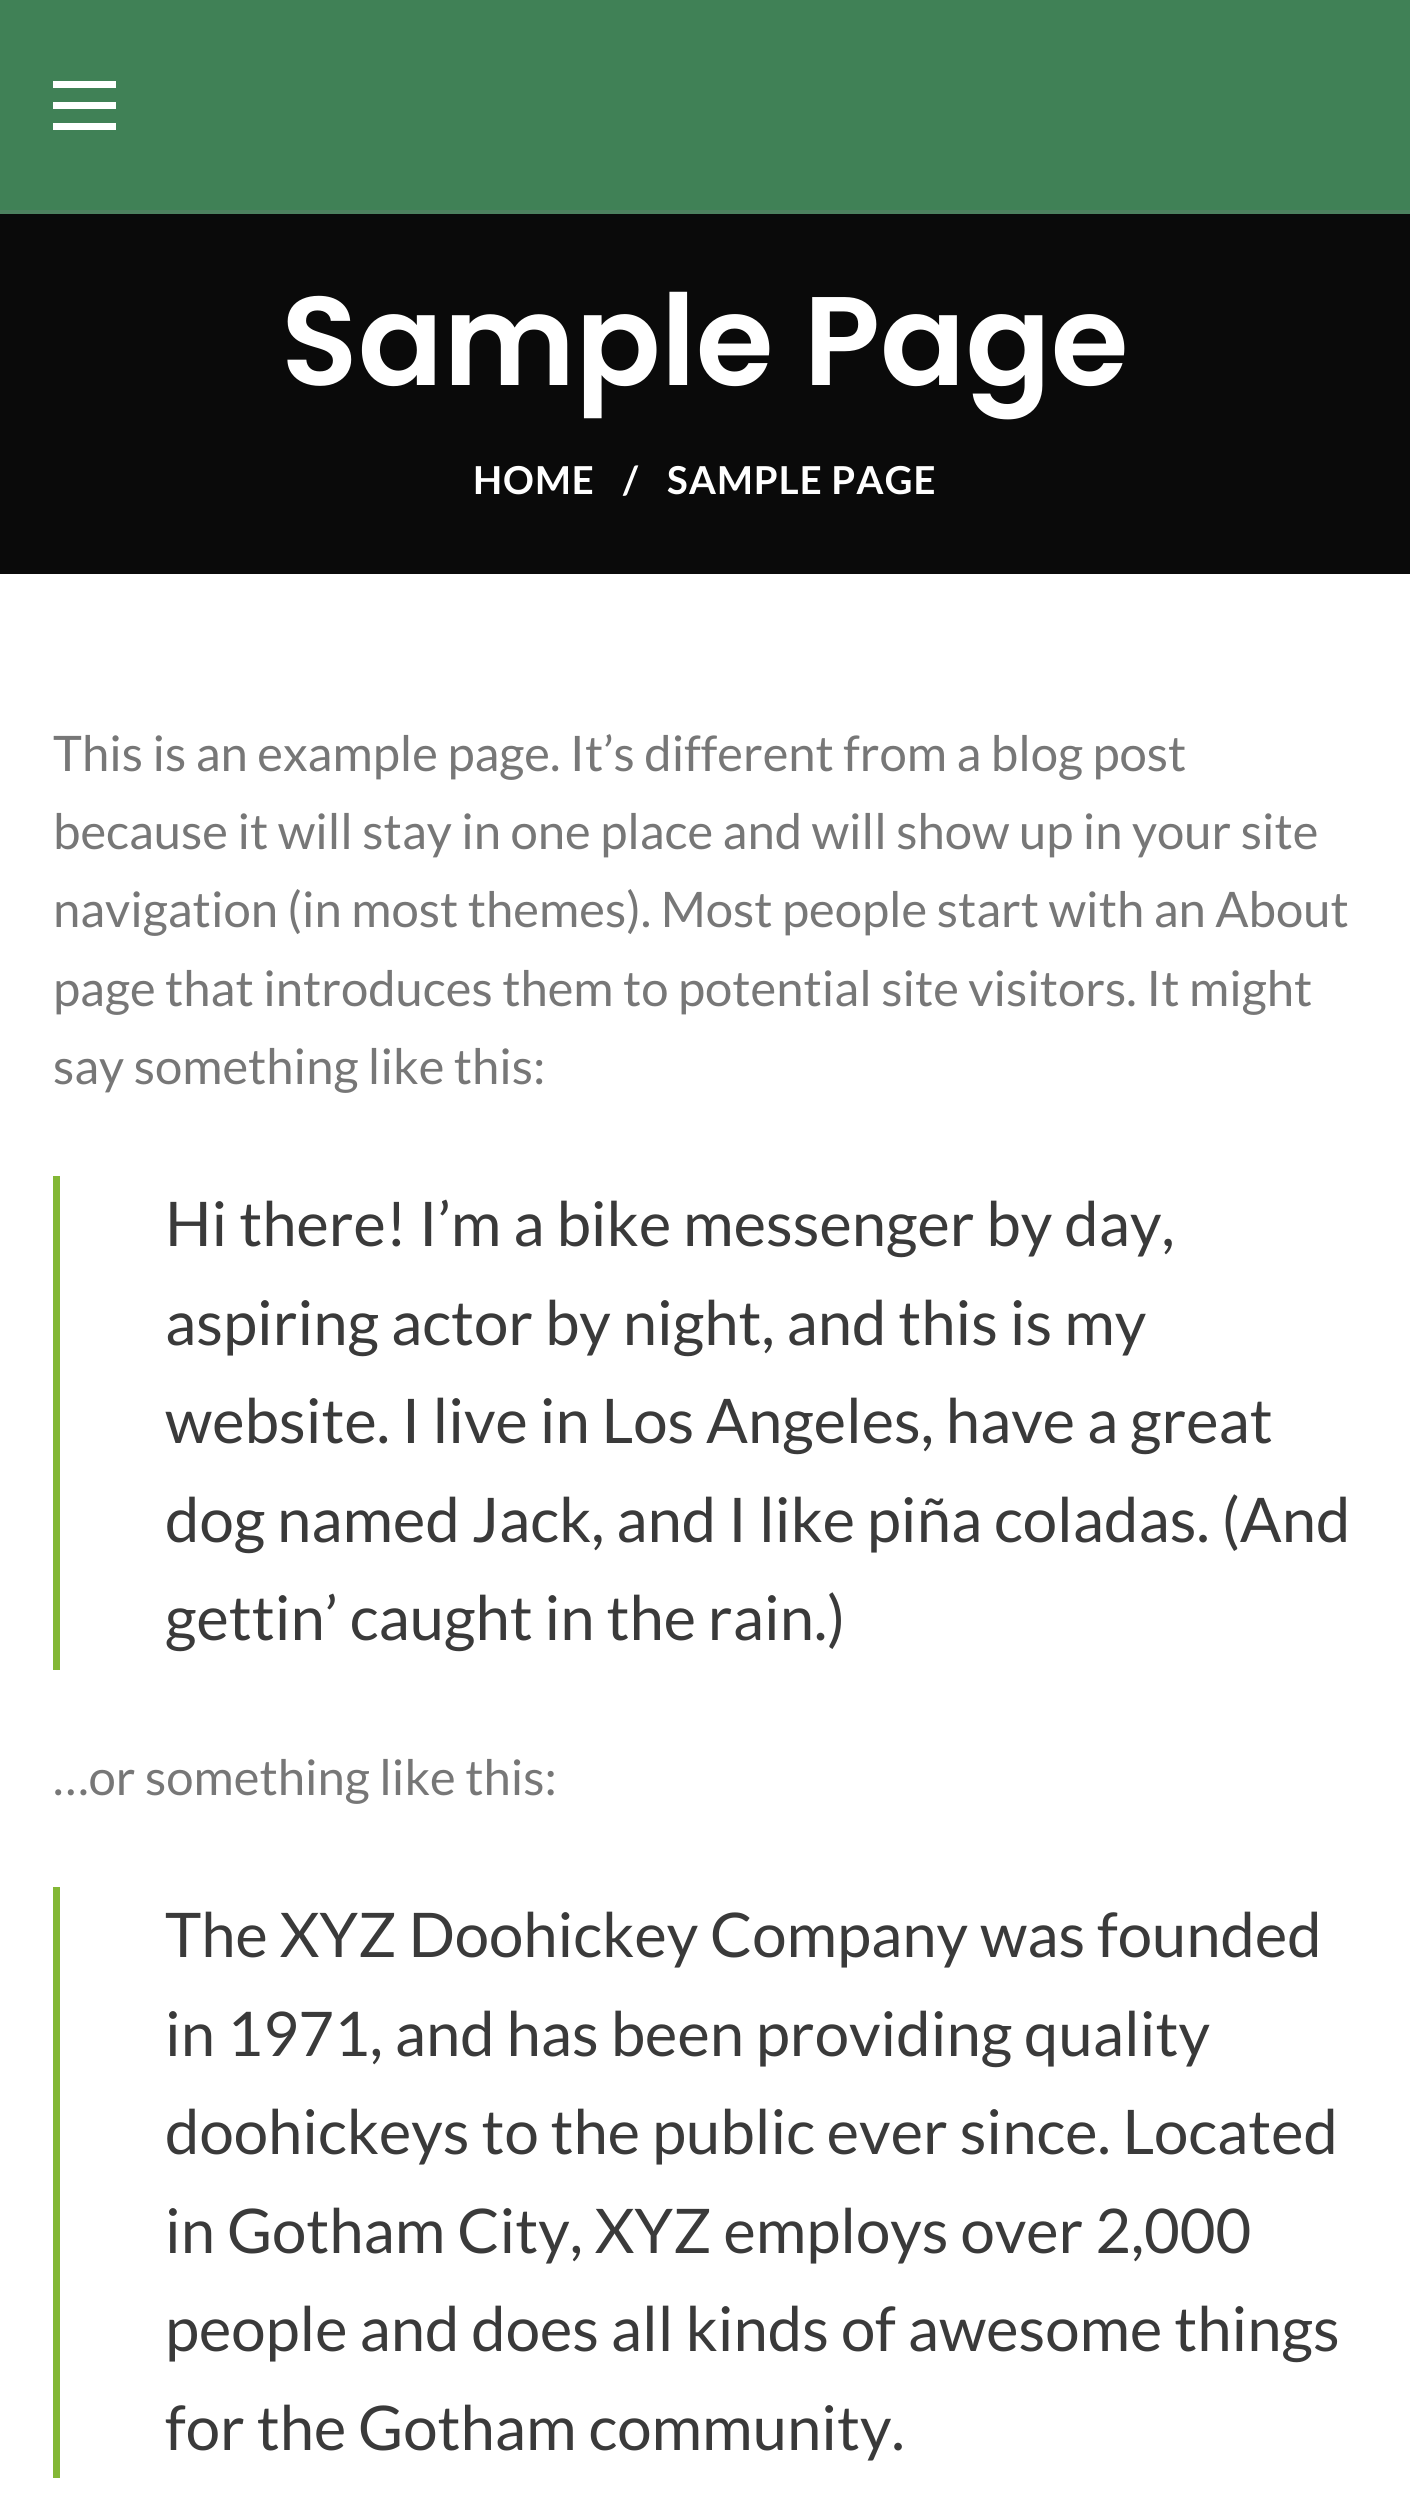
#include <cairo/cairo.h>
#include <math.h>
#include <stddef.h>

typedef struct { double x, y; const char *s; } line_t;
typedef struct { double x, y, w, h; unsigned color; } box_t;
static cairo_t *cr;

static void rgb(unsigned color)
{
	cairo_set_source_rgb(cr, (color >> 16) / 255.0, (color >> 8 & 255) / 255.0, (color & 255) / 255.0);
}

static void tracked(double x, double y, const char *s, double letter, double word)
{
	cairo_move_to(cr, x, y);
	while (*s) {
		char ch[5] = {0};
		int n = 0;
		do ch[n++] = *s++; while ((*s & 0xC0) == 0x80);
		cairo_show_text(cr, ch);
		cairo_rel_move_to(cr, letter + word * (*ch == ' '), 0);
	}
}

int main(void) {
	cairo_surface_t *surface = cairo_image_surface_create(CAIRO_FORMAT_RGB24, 1410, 2500);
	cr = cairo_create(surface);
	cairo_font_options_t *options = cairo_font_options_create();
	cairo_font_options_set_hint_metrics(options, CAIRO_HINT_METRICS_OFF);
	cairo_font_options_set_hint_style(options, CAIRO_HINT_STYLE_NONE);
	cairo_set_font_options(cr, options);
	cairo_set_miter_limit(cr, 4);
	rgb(0xffffff);
	cairo_paint(cr);
	{
		static const box_t items[] = {
			{0, 0, 1410, 210, 0x408156},
			{0, 210, 1410, 4, 0x4d815f},
			{53, 102, 63, 7, 0xffffff},
			{53, 81, 63, 7, 0xffffff},
			{53, 123, 63, 7, 0xffffff},
			{0, 214, 1410, 360, 0x0a0a0a},
			{53, 1176, 7, 494, 0x83b735},
			{53, 1887, 7, 591, 0x83b735},
		};
		for (size_t i = 0; i < sizeof items / sizeof *items; i++) {
			rgb(items[i].color);
			cairo_rectangle(cr, items[i].x, items[i].y, items[i].w, items[i].h);
			cairo_fill(cr);
		}
	}
	cairo_select_font_face(cr, "Poppins SemiBold", CAIRO_FONT_SLANT_NORMAL, CAIRO_FONT_WEIGHT_NORMAL);
	cairo_set_font_size(cr, 126);
	rgb(0xffffff);
	cairo_move_to(cr, 281, 385);
	cairo_show_text(cr, "Sample Page");
	cairo_select_font_face(cr, "Lato", CAIRO_FONT_SLANT_NORMAL, CAIRO_FONT_WEIGHT_BOLD);
	cairo_set_font_size(cr, 38.5);
	{
		static const line_t items[] = {
			{473, 494, "HOME"},
			{623, 494, "/"},
			{667, 494, "SAMPLE PAGE"},
		};
		for (size_t i = 0; i < sizeof items / sizeof *items; i++) {
			tracked(items[i].x, items[i].y, items[i].s, 1, 0);
		}
	}
	cairo_select_font_face(cr, "Lato", CAIRO_FONT_SLANT_NORMAL, CAIRO_FONT_WEIGHT_NORMAL);
	cairo_set_font_size(cr, 49);
	rgb(0x777777);
	{
		static const line_t items[] = {
			{53, 771, "This is an example page. It’s different from a blog post"},
			{53, 849, "because it will stay in one place and will show up in your site"},
			{53, 927, "navigation (in most themes). Most people start with an About"},
			{53, 1006, "page that introduces them to potential site visitors. It might"},
			{53, 1084, "say something like this:"},
		};
		for (size_t i = 0; i < sizeof items / sizeof *items; i++) {
			cairo_move_to(cr, items[i].x, items[i].y);
			cairo_show_text(cr, items[i].s);
		}
	}
	cairo_set_font_size(cr, 61.6);
	rgb(0x3a3a3a);
	{
		static const line_t items[] = {
			{165, 1246, "Hi there! I’m a bike messenger by day,"},
			{165, 1345, "aspiring actor by night, and this is my"},
			{165, 1443, "website. I live in Los Angeles, have a great"},
			{165, 1542, "dog named Jack, and I like piña coladas. (And"},
			{165, 1640, "gettin’ caught in the rain.)"},
		};
		for (size_t i = 0; i < sizeof items / sizeof *items; i++) {
			cairo_move_to(cr, items[i].x, items[i].y);
			cairo_show_text(cr, items[i].s);
		}
	}
	cairo_set_font_size(cr, 49);
	rgb(0x777777);
	cairo_move_to(cr, 53, 1795);
	cairo_show_text(cr, "…or something like this:");
	cairo_set_font_size(cr, 61.6);
	rgb(0x3a3a3a);
	{
		static const line_t items[] = {
			{165, 1957, "The XYZ Doohickey Company was founded"},
			{165, 2056, "in 1971, and has been providing quality"},
			{165, 2154, "doohickeys to the public ever since. Located"},
			{165, 2253, "in Gotham City, XYZ employs over 2,000"},
			{165, 2351, "people and does all kinds of awesome things"},
			{165, 2450, "for the Gotham community."},
		};
		for (size_t i = 0; i < sizeof items / sizeof *items; i++) {
			cairo_move_to(cr, items[i].x, items[i].y);
			cairo_show_text(cr, items[i].s);
		}
	}
	cairo_surface_write_to_png(surface, "page.png");
	cairo_font_options_destroy(options);
	cairo_destroy(cr);
	cairo_surface_destroy(surface);
	return 0;
}
